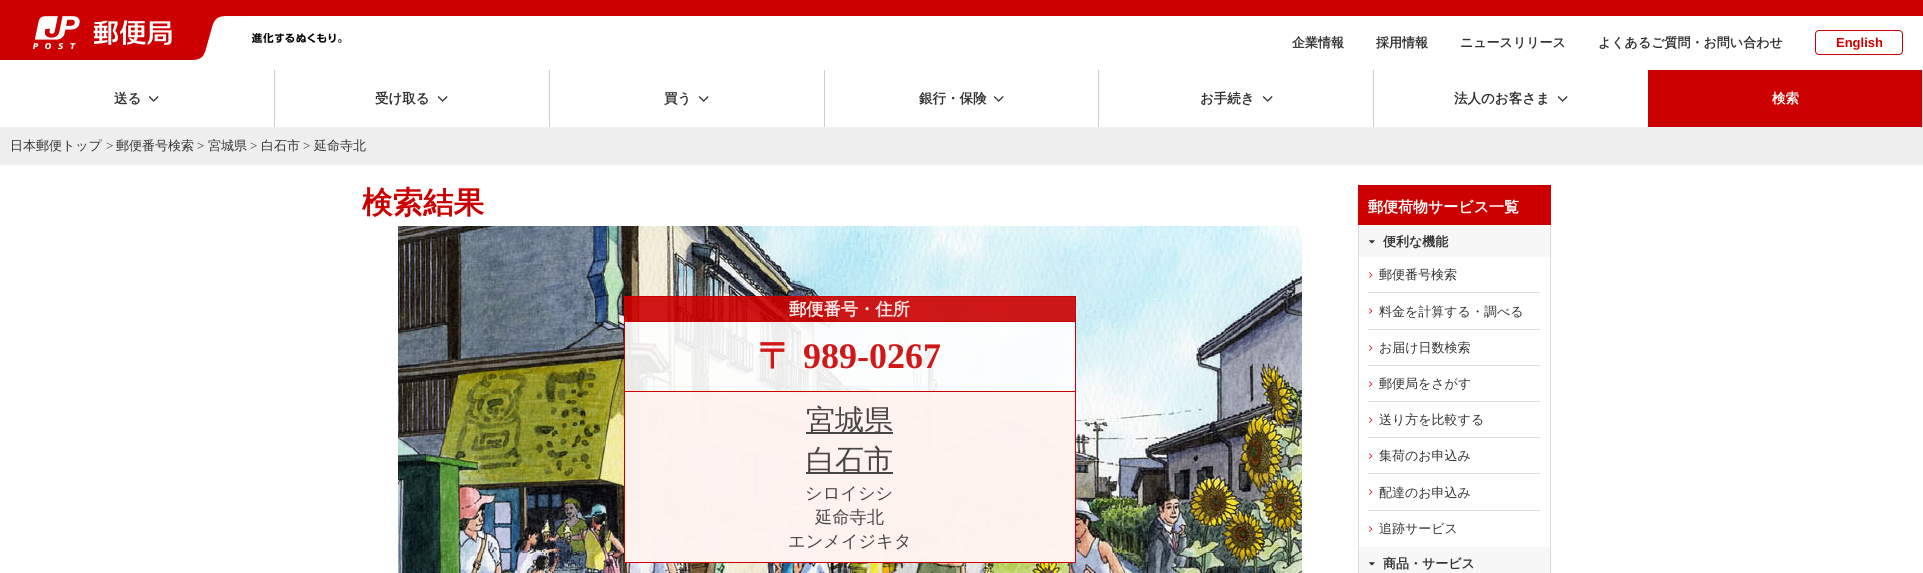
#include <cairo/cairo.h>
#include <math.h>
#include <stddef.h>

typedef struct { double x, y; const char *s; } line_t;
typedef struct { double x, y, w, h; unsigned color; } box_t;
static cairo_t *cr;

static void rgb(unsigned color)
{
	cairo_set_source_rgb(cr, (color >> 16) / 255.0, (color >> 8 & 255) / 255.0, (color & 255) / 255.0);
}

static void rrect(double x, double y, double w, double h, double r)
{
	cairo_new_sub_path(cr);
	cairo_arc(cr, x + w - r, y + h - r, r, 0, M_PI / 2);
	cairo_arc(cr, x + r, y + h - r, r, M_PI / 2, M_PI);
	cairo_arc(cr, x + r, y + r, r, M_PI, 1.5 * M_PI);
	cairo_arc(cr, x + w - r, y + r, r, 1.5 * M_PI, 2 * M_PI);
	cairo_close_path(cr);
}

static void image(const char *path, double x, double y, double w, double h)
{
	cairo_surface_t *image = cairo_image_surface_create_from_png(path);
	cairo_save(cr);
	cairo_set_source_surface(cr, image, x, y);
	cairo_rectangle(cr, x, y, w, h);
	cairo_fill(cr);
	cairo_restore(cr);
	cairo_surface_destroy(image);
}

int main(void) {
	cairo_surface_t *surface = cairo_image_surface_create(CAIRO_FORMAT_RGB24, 1923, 573);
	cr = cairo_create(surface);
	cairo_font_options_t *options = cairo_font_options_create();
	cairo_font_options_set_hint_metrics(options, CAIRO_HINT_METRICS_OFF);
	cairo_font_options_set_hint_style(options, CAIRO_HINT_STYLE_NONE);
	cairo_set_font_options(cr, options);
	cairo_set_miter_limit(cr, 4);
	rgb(0xffffff);
	cairo_paint(cr);
	rgb(0xcc0000);
	cairo_rectangle(cr, 0, 0, 1923, 16);
	cairo_fill(cr);
	image("img/1.png", 0, 16, 251, 44);
	image("img/2.png", 252, 33, 90, 10);
	rrect(1815.5, 30.5, 87, 24, 3.5);
	cairo_set_line_width(cr, 1);
	cairo_stroke(cr);
	rgb(0xcccccc);
	cairo_rectangle(cr, 274, 70, 1, 57);
	cairo_fill(cr);
	image("img/3.png", 148, 96, 11, 6);
	cairo_rectangle(cr, 549, 70, 1, 57);
	cairo_fill(cr);
	image("img/3.png", 437, 96, 11, 6);
	cairo_rectangle(cr, 824, 70, 1, 57);
	cairo_fill(cr);
	image("img/3.png", 698, 96, 11, 6);
	cairo_rectangle(cr, 1098, 70, 1, 57);
	cairo_fill(cr);
	image("img/3.png", 993, 96, 11, 6);
	cairo_rectangle(cr, 1373, 70, 1, 57);
	cairo_fill(cr);
	image("img/3.png", 1262, 96, 11, 6);
	image("img/3.png", 1557, 96, 11, 6);
	{
		static const box_t items[] = {
			{1648, 70, 274, 57, 0xcc0000},
			{1922, 70, 1, 57, 0xcccccc},
			{0, 127, 1923, 38, 0xeeeeee},
		};
		for (size_t i = 0; i < sizeof items / sizeof *items; i++) {
			rgb(items[i].color);
			cairo_rectangle(cr, items[i].x, items[i].y, items[i].w, items[i].h);
			cairo_fill(cr);
		}
	}
	image("img/4.png", 398, 226, 904, 347);
	cairo_set_source_rgba(cr, 0.8, 0, 0, 0.9);
	cairo_rectangle(cr, 624, 296, 452, 1);
	cairo_fill(cr);
	cairo_rectangle(cr, 1075, 296, 1, 267);
	cairo_fill(cr);
	cairo_set_source_rgba(cr, 1, 1, 1, 0.9);
	cairo_rectangle(cr, 624, 392, 451, 171);
	cairo_fill(cr);
	cairo_set_source_rgba(cr, 0.8, 0, 0, 0.9);
	cairo_rectangle(cr, 624, 562, 452, 1);
	cairo_fill(cr);
	cairo_set_source_rgba(cr, 1, 1, 1, 0.9);
	cairo_rectangle(cr, 624, 322, 451, 70);
	cairo_fill(cr);
	cairo_set_source_rgba(cr, 0.8, 0, 0, 0.9);
	cairo_rectangle(cr, 624, 322, 1, 241);
	cairo_fill(cr);
	cairo_rectangle(cr, 625, 297, 450, 25);
	cairo_fill(cr);
	cairo_rectangle(cr, 624, 296, 452, 1);
	cairo_fill(cr);
	cairo_rectangle(cr, 624, 321, 452, 1);
	cairo_fill(cr);
	cairo_rectangle(cr, 624, 391, 452, 1);
	cairo_fill(cr);
	cairo_rectangle(cr, 1075, 391, 1, 172);
	cairo_fill(cr);
	cairo_rectangle(cr, 1075, 321, 1, 71);
	cairo_fill(cr);
	cairo_rectangle(cr, 1075, 296, 1, 26);
	cairo_fill(cr);
	cairo_rectangle(cr, 624, 562, 452, 1);
	cairo_fill(cr);
	cairo_rectangle(cr, 624, 391, 1, 172);
	cairo_fill(cr);
	cairo_rectangle(cr, 624, 391, 452, 1);
	cairo_fill(cr);
	cairo_rectangle(cr, 624, 321, 1, 71);
	cairo_fill(cr);
	rgb(0xcc0000);
	cairo_rectangle(cr, 624, 296, 1, 26);
	cairo_fill(cr);
	cairo_set_source_rgba(cr, 1, 0.949, 0.937, 0.9);
	cairo_rectangle(cr, 625, 392, 450, 170);
	cairo_fill(cr);
	rgb(0x474646);
	cairo_rectangle(cr, 806, 432, 87, 2);
	cairo_fill(cr);
	cairo_rectangle(cr, 806, 472, 87, 2);
	cairo_fill(cr);
	rgb(0xcc0000);
	cairo_rectangle(cr, 1358, 185, 193, 40);
	cairo_fill(cr);
	rgb(0xf7f7f7);
	cairo_rectangle(cr, 1359, 225, 191, 32);
	cairo_fill(cr);
	image("img/5.png", 1369, 240, 6, 4);
	rgb(0xdcdcdc);
	cairo_rectangle(cr, 1550, 225, 1, 348);
	cairo_fill(cr);
	cairo_rectangle(cr, 1358, 225, 1, 348);
	cairo_fill(cr);
	image("img/6.png", 1369, 272, 4, 6);
	cairo_rectangle(cr, 1368, 292, 172, 1);
	cairo_fill(cr);
	image("img/6.png", 1369, 308, 4, 6);
	cairo_rectangle(cr, 1368, 329, 172, 1);
	cairo_fill(cr);
	image("img/6.png", 1369, 345, 4, 6);
	cairo_rectangle(cr, 1368, 365, 172, 1);
	cairo_fill(cr);
	image("img/6.png", 1369, 381, 4, 6);
	cairo_rectangle(cr, 1368, 401, 172, 1);
	cairo_fill(cr);
	image("img/6.png", 1369, 417, 4, 6);
	cairo_rectangle(cr, 1368, 437, 172, 1);
	cairo_fill(cr);
	image("img/6.png", 1369, 453, 4, 6);
	cairo_rectangle(cr, 1368, 473, 172, 1);
	cairo_fill(cr);
	image("img/6.png", 1369, 489, 4, 6);
	cairo_rectangle(cr, 1368, 510, 172, 1);
	cairo_fill(cr);
	image("img/6.png", 1369, 526, 4, 6);
	rgb(0xf7f7f7);
	cairo_rectangle(cr, 1359, 547, 191, 26);
	cairo_fill(cr);
	image("img/5.png", 1369, 562, 6, 4);
	cairo_select_font_face(cr, "WenQuanYi Zen Hei", CAIRO_FONT_SLANT_NORMAL, CAIRO_FONT_WEIGHT_BOLD);
	cairo_set_font_size(cr, 13);
	rgb(0x333333);
	{
		static const line_t items[] = {
			{1292, 47, "企業情報"},
			{1376, 47, "採用情報"},
			{1460, 47, "ニュースリリース"},
			{1598, 47, "よくあるご質問・お問い合わせ"},
		};
		for (size_t i = 0; i < sizeof items / sizeof *items; i++) {
			cairo_move_to(cr, items[i].x, items[i].y);
			cairo_show_text(cr, items[i].s);
		}
	}
	cairo_select_font_face(cr, "Liberation Sans", CAIRO_FONT_SLANT_NORMAL, CAIRO_FONT_WEIGHT_BOLD);
	rgb(0xcc0000);
	cairo_move_to(cr, 1836, 47);
	cairo_show_text(cr, "English");
	cairo_select_font_face(cr, "WenQuanYi Zen Hei", CAIRO_FONT_SLANT_NORMAL, CAIRO_FONT_WEIGHT_BOLD);
	cairo_set_font_size(cr, 13.5);
	rgb(0x333333);
	{
		static const line_t items[] = {
			{114, 103, "送る"},
			{375, 103, "受け取る"},
			{664, 103, "買う"},
			{919, 103, "銀行・保険"},
			{1200, 103, "お手続き"},
			{1454, 103, "法人のお客さま"},
		};
		for (size_t i = 0; i < sizeof items / sizeof *items; i++) {
			cairo_move_to(cr, items[i].x, items[i].y);
			cairo_show_text(cr, items[i].s);
		}
	}
	rgb(0xffffff);
	cairo_move_to(cr, 1772, 103);
	cairo_show_text(cr, "検索");
	cairo_select_font_face(cr, "WenQuanYi Zen Hei Medium", CAIRO_FONT_SLANT_NORMAL, CAIRO_FONT_WEIGHT_NORMAL);
	cairo_set_font_size(cr, 13);
	rgb(0x333333);
	cairo_move_to(cr, 10, 150);
	cairo_show_text(cr, "日本郵便トップ");
	cairo_select_font_face(cr, "Liberation Serif", CAIRO_FONT_SLANT_NORMAL, CAIRO_FONT_WEIGHT_NORMAL);
	cairo_move_to(cr, 106, 150);
	cairo_show_text(cr, ">");
	cairo_select_font_face(cr, "WenQuanYi Zen Hei Medium", CAIRO_FONT_SLANT_NORMAL, CAIRO_FONT_WEIGHT_NORMAL);
	cairo_move_to(cr, 116, 150);
	cairo_show_text(cr, "郵便番号検索");
	cairo_select_font_face(cr, "Liberation Serif", CAIRO_FONT_SLANT_NORMAL, CAIRO_FONT_WEIGHT_NORMAL);
	cairo_move_to(cr, 197, 150);
	cairo_show_text(cr, ">");
	cairo_select_font_face(cr, "WenQuanYi Zen Hei Medium", CAIRO_FONT_SLANT_NORMAL, CAIRO_FONT_WEIGHT_NORMAL);
	cairo_move_to(cr, 208, 150);
	cairo_show_text(cr, "宮城県");
	cairo_select_font_face(cr, "Liberation Serif", CAIRO_FONT_SLANT_NORMAL, CAIRO_FONT_WEIGHT_NORMAL);
	cairo_move_to(cr, 250, 150);
	cairo_show_text(cr, ">");
	cairo_select_font_face(cr, "WenQuanYi Zen Hei Medium", CAIRO_FONT_SLANT_NORMAL, CAIRO_FONT_WEIGHT_NORMAL);
	cairo_move_to(cr, 261, 150);
	cairo_show_text(cr, "白石市");
	cairo_select_font_face(cr, "Liberation Serif", CAIRO_FONT_SLANT_NORMAL, CAIRO_FONT_WEIGHT_NORMAL);
	cairo_move_to(cr, 303, 150);
	cairo_show_text(cr, ">");
	cairo_select_font_face(cr, "WenQuanYi Zen Hei Medium", CAIRO_FONT_SLANT_NORMAL, CAIRO_FONT_WEIGHT_NORMAL);
	cairo_move_to(cr, 314, 150);
	cairo_show_text(cr, "延命寺北");
	cairo_select_font_face(cr, "WenQuanYi Zen Hei", CAIRO_FONT_SLANT_NORMAL, CAIRO_FONT_WEIGHT_BOLD);
	cairo_set_font_size(cr, 30.5);
	rgb(0xcc0000);
	cairo_move_to(cr, 362, 213);
	cairo_show_text(cr, "検索結果");
	cairo_set_font_size(cr, 17.25);
	rgb(0xf9e7e7);
	cairo_move_to(cr, 789, 315);
	cairo_show_text(cr, "郵便番号・住所");
	cairo_set_font_size(cr, 36);
	rgb(0xd01818);
	cairo_move_to(cr, 758, 368);
	cairo_show_text(cr, "〒");
	cairo_select_font_face(cr, "Liberation Serif", CAIRO_FONT_SLANT_NORMAL, CAIRO_FONT_WEIGHT_BOLD);
	cairo_move_to(cr, 803, 368);
	cairo_show_text(cr, "989-0267");
	cairo_select_font_face(cr, "WenQuanYi Zen Hei Medium", CAIRO_FONT_SLANT_NORMAL, CAIRO_FONT_WEIGHT_NORMAL);
	cairo_set_font_size(cr, 29);
	rgb(0x474645);
	cairo_move_to(cr, 806, 430);
	cairo_show_text(cr, "宮城県");
	cairo_move_to(cr, 806, 470);
	cairo_show_text(cr, "白石市");
	cairo_set_font_size(cr, 17.25);
	{
		static const line_t items[] = {
			{805, 499, "シロイシシ"},
			{815, 523, "延命寺北"},
			{788, 547, "エンメイジキタ"},
		};
		for (size_t i = 0; i < sizeof items / sizeof *items; i++) {
			cairo_move_to(cr, items[i].x, items[i].y);
			cairo_show_text(cr, items[i].s);
		}
	}
	cairo_select_font_face(cr, "WenQuanYi Zen Hei", CAIRO_FONT_SLANT_NORMAL, CAIRO_FONT_WEIGHT_BOLD);
	cairo_set_font_size(cr, 15);
	rgb(0xffffff);
	cairo_move_to(cr, 1368, 212);
	cairo_show_text(cr, "郵便荷物サービス一覧");
	cairo_set_font_size(cr, 13);
	rgb(0x333333);
	cairo_move_to(cr, 1383, 246);
	cairo_show_text(cr, "便利な機能");
	cairo_select_font_face(cr, "WenQuanYi Zen Hei Medium", CAIRO_FONT_SLANT_NORMAL, CAIRO_FONT_WEIGHT_NORMAL);
	{
		static const line_t items[] = {
			{1379, 279, "郵便番号検索"},
			{1379, 316, "料金を計算する・調べる"},
			{1379, 352, "お届け日数検索"},
			{1379, 388, "郵便局をさがす"},
			{1379, 424, "送り方を比較する"},
			{1379, 460, "集荷のお申込み"},
			{1379, 497, "配達のお申込み"},
			{1379, 533, "追跡サービス"},
		};
		for (size_t i = 0; i < sizeof items / sizeof *items; i++) {
			cairo_move_to(cr, items[i].x, items[i].y);
			cairo_show_text(cr, items[i].s);
		}
	}
	cairo_select_font_face(cr, "WenQuanYi Zen Hei", CAIRO_FONT_SLANT_NORMAL, CAIRO_FONT_WEIGHT_BOLD);
	cairo_move_to(cr, 1383, 568);
	cairo_show_text(cr, "商品・サービス");
	cairo_surface_write_to_png(surface, "page.png");
	cairo_font_options_destroy(options);
	cairo_destroy(cr);
	cairo_surface_destroy(surface);
	return 0;
}
